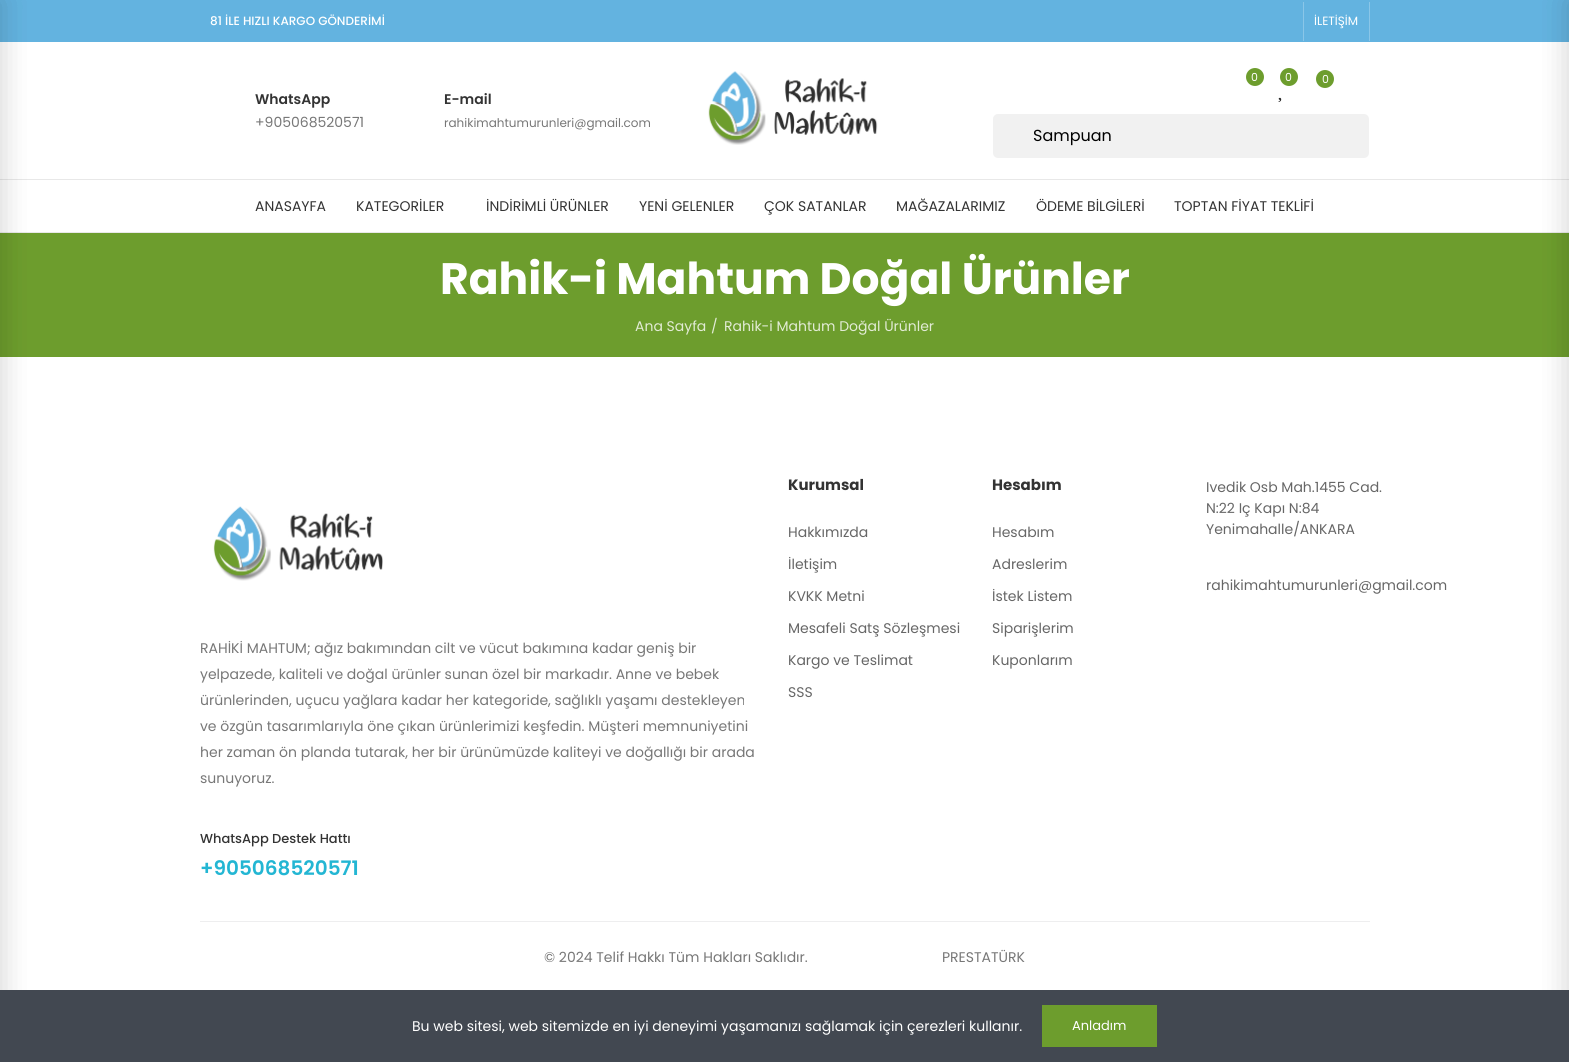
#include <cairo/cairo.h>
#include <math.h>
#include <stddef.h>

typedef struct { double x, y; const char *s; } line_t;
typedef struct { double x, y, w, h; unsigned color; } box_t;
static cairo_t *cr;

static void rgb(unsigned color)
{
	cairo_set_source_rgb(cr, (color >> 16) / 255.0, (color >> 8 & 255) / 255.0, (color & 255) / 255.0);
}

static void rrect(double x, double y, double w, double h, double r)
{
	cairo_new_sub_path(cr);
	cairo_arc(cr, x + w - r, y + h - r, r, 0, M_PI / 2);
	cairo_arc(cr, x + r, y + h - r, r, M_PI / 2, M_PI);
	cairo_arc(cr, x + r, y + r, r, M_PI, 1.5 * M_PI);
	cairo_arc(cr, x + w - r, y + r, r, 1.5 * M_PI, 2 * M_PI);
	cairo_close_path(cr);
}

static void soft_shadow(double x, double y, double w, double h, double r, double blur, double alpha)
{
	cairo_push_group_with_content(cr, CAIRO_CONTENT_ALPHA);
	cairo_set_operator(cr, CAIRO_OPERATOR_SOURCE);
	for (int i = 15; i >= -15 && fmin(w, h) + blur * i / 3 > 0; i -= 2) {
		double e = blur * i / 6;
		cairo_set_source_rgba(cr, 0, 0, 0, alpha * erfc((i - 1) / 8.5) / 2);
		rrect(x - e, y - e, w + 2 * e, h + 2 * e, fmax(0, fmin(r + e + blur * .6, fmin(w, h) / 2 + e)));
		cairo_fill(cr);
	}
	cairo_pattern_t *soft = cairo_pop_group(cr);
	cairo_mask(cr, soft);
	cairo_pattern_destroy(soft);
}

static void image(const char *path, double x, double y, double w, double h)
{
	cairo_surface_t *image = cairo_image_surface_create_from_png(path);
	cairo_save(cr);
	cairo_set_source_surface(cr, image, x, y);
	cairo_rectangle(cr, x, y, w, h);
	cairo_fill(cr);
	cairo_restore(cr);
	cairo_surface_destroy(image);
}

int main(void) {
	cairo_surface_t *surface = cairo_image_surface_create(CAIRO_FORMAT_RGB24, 1569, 1062);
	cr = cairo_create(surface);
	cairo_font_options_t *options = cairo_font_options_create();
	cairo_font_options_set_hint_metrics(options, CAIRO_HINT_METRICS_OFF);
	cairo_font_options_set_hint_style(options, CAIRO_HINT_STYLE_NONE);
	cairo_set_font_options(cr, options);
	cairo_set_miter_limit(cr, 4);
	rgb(0xffffff);
	cairo_paint(cr);
	{
		static const box_t items[] = {
			{0, 0, 1569, 42, 0x63b3e0},
			{0, 179, 1569, 1, 0xe8e8e8},
			{0, 232, 1569, 1, 0xe8e8e8},
			{0, 233, 1569, 124, 0x6d9d2d},
		};
		for (size_t i = 0; i < sizeof items / sizeof *items; i++) {
			rgb(items[i].color);
			cairo_rectangle(cr, items[i].x, items[i].y, items[i].w, items[i].h);
			cairo_fill(cr);
		}
	}
	rgb(0x000000);
	soft_shadow(-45, 0, 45, 1062, 0, 15, 0.1);
	soft_shadow(-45, 0, 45, 1062, 0, 15, 0.1);
	soft_shadow(1569, 0, 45, 1062, 0, 15, 0.1);
	rgb(0x8ac6e8);
	cairo_rectangle(cr, 1369, 2, 1, 39);
	cairo_fill(cr);
	cairo_rectangle(cr, 1303, 2, 1, 39);
	cairo_fill(cr);
	image("img/1.png", 708, 71, 170, 74);
	rgb(0x6d9d2d);
	cairo_arc(cr, 1255, 77, 9, 0, 2 * M_PI);
	cairo_fill(cr);
	cairo_arc(cr, 1289, 77, 9, 0, 2 * M_PI);
	cairo_fill(cr);
	image("img/2.png", 1278, 97, 4, 5);
	cairo_arc(cr, 1325, 79, 9, 0, 2 * M_PI);
	cairo_fill(cr);
	rgb(0xf1f1f1);
	rrect(993, 114, 376, 44, 5);
	cairo_fill(cr);
	image("img/3.png", 213, 506, 170, 75);
	rgb(0xeeeeef);
	cairo_rectangle(cr, 200, 921, 1170, 1);
	cairo_fill(cr);
	rgb(0x000000);
	soft_shadow(1569, 0, 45, 1062, 0, 15, 0.1);
	rgb(0x424851);
	cairo_rectangle(cr, 0, 990, 1569, 72);
	cairo_fill(cr);
	rgb(0x6d9d2d);
	cairo_rectangle(cr, 1042, 1005, 115, 42);
	cairo_fill(cr);
	cairo_select_font_face(cr, "Poppins Medium", CAIRO_FONT_SLANT_NORMAL, CAIRO_FONT_WEIGHT_NORMAL);
	cairo_set_font_size(cr, 12);
	rgb(0xffffff);
	cairo_move_to(cr, 210, 25);
	cairo_show_text(cr, "81 İLE HIZLI KARGO GÖNDERİMİ");
	cairo_select_font_face(cr, "Poppins", CAIRO_FONT_SLANT_NORMAL, CAIRO_FONT_WEIGHT_NORMAL);
	cairo_move_to(cr, 1314, 25);
	cairo_show_text(cr, "İLETİŞİM");
	cairo_select_font_face(cr, "Poppins SemiBold", CAIRO_FONT_SLANT_NORMAL, CAIRO_FONT_WEIGHT_NORMAL);
	cairo_set_font_size(cr, 14);
	rgb(0x333333);
	cairo_move_to(cr, 255, 104);
	cairo_show_text(cr, "WhatsApp");
	cairo_select_font_face(cr, "Poppins", CAIRO_FONT_SLANT_NORMAL, CAIRO_FONT_WEIGHT_NORMAL);
	rgb(0x777777);
	cairo_move_to(cr, 255, 127);
	cairo_show_text(cr, "+905068520571");
	cairo_select_font_face(cr, "Poppins SemiBold", CAIRO_FONT_SLANT_NORMAL, CAIRO_FONT_WEIGHT_NORMAL);
	rgb(0x333333);
	cairo_move_to(cr, 444, 104);
	cairo_show_text(cr, "E-mail");
	cairo_select_font_face(cr, "Poppins", CAIRO_FONT_SLANT_NORMAL, CAIRO_FONT_WEIGHT_NORMAL);
	cairo_set_font_size(cr, 12);
	rgb(0x777777);
	cairo_move_to(cr, 444, 127);
	cairo_show_text(cr, "rahikimahtumurunleri@gmail.com");
	cairo_set_font_size(cr, 11);
	rgb(0xffffff);
	{
		static const line_t items[] = {
			{1251, 81, "0"},
			{1285, 81, "0"},
			{1322, 83, "0"},
		};
		for (size_t i = 0; i < sizeof items / sizeof *items; i++) {
			cairo_move_to(cr, items[i].x, items[i].y);
			cairo_show_text(cr, items[i].s);
		}
	}
	cairo_set_font_size(cr, 16);
	rgb(0x000000);
	cairo_move_to(cr, 1033, 141);
	cairo_show_text(cr, "Sampuan");
	cairo_set_font_size(cr, 14);
	rgb(0x333333);
	{
		static const line_t items[] = {
			{255, 211, "ANASAYFA"},
			{356, 211, "KATEGORİLER"},
			{486, 211, "İNDİRİMLİ ÜRÜNLER"},
			{639, 211, "YENİ GELENLER"},
			{764, 211, "ÇOK SATANLAR"},
			{896, 211, "MAĞAZALARIMIZ"},
			{1036, 211, "ÖDEME BİLGİLERİ"},
			{1174, 211, "TOPTAN FİYAT TEKLİFİ"},
		};
		for (size_t i = 0; i < sizeof items / sizeof *items; i++) {
			cairo_move_to(cr, items[i].x, items[i].y);
			cairo_show_text(cr, items[i].s);
		}
	}
	cairo_select_font_face(cr, "Poppins", CAIRO_FONT_SLANT_NORMAL, CAIRO_FONT_WEIGHT_BOLD);
	cairo_set_font_size(cr, 44);
	rgb(0xffffff);
	cairo_move_to(cr, 440, 294);
	cairo_show_text(cr, "Rahik-i Mahtum Doğal Ürünler");
	cairo_select_font_face(cr, "Poppins", CAIRO_FONT_SLANT_NORMAL, CAIRO_FONT_WEIGHT_NORMAL);
	cairo_set_font_size(cr, 14);
	rgb(0xe2ebd5);
	{
		static const line_t items[] = {
			{635, 331, "Ana Sayfa"},
			{711, 331, "/"},
			{724, 331, "Rahik-i Mahtum Doğal Ürünler"},
		};
		for (size_t i = 0; i < sizeof items / sizeof *items; i++) {
			cairo_move_to(cr, items[i].x, items[i].y);
			cairo_show_text(cr, items[i].s);
		}
	}
	cairo_select_font_face(cr, "Poppins", CAIRO_FONT_SLANT_NORMAL, CAIRO_FONT_WEIGHT_BOLD);
	cairo_set_font_size(cr, 15);
	rgb(0x333333);
	cairo_move_to(cr, 788, 490);
	cairo_show_text(cr, "Kurumsal");
	cairo_select_font_face(cr, "Poppins", CAIRO_FONT_SLANT_NORMAL, CAIRO_FONT_WEIGHT_NORMAL);
	cairo_set_font_size(cr, 14);
	rgb(0x666666);
	{
		static const line_t items[] = {
			{788, 537, "Hakkımızda"},
			{788, 569, "İletişim"},
			{788, 601, "KVKK Metni"},
			{788, 633, "Mesafeli Satş Sözleşmesi"},
			{788, 665, "Kargo ve Teslimat"},
			{788, 697, "SSS"},
		};
		for (size_t i = 0; i < sizeof items / sizeof *items; i++) {
			cairo_move_to(cr, items[i].x, items[i].y);
			cairo_show_text(cr, items[i].s);
		}
	}
	cairo_select_font_face(cr, "Poppins", CAIRO_FONT_SLANT_NORMAL, CAIRO_FONT_WEIGHT_BOLD);
	cairo_set_font_size(cr, 15);
	rgb(0x333333);
	cairo_move_to(cr, 992, 490);
	cairo_show_text(cr, "Hesabım");
	cairo_select_font_face(cr, "Poppins", CAIRO_FONT_SLANT_NORMAL, CAIRO_FONT_WEIGHT_NORMAL);
	cairo_set_font_size(cr, 14);
	rgb(0x666666);
	{
		static const line_t items[] = {
			{992, 537, "Hesabım"},
			{992, 569, "Adreslerim"},
			{992, 601, "İstek Listem"},
			{992, 633, "Siparişlerim"},
			{992, 665, "Kuponlarım"},
			{1206, 492, "Ivedik Osb Mah.1455 Cad."},
			{1206, 513, "N:22 Iç Kapı N:84"},
			{1206, 534, "Yenimahalle/ANKARA"},
			{1206, 590, "rahikimahtumurunleri@gmail.com"},
		};
		for (size_t i = 0; i < sizeof items / sizeof *items; i++) {
			cairo_move_to(cr, items[i].x, items[i].y);
			cairo_show_text(cr, items[i].s);
		}
	}
	rgb(0x777777);
	{
		static const line_t items[] = {
			{200, 653, "RAHİKİ MAHTUM; ağız bakımından cilt ve vücut bakımına kadar geniş bir"},
			{200, 679, "yelpazede, kaliteli ve doğal ürünler sunan özel bir markadır. Anne ve bebek"},
			{200, 705, "ürünlerinden, uçucu yağlara kadar her kategoride, sağlıklı yaşamı destekleyen"},
			{200, 731, "ve özgün tasarımlarıyla öne çıkan ürünlerimizi keşfedin. Müşteri memnuniyetini"},
			{200, 757, "her zaman ön planda tutarak, her bir ürünümüzde kaliteyi ve doğallığı bir arada"},
			{200, 783, "sunuyoruz."},
		};
		for (size_t i = 0; i < sizeof items / sizeof *items; i++) {
			cairo_move_to(cr, items[i].x, items[i].y);
			cairo_show_text(cr, items[i].s);
		}
	}
	cairo_select_font_face(cr, "Poppins Medium", CAIRO_FONT_SLANT_NORMAL, CAIRO_FONT_WEIGHT_NORMAL);
	cairo_set_font_size(cr, 13);
	rgb(0x333333);
	cairo_move_to(cr, 200, 843);
	cairo_show_text(cr, "WhatsApp Destek Hattı");
	cairo_select_font_face(cr, "Poppins SemiBold", CAIRO_FONT_SLANT_NORMAL, CAIRO_FONT_WEIGHT_NORMAL);
	cairo_set_font_size(cr, 20);
	rgb(0x23b6d3);
	cairo_move_to(cr, 200, 875);
	cairo_show_text(cr, "+905068520571");
	cairo_select_font_face(cr, "Poppins", CAIRO_FONT_SLANT_NORMAL, CAIRO_FONT_WEIGHT_NORMAL);
	cairo_set_font_size(cr, 14);
	rgb(0x777777);
	cairo_move_to(cr, 544, 962);
	cairo_show_text(cr, "© 2024 Telif Hakkı Tüm Hakları Saklıdır.");
	cairo_move_to(cr, 942, 962);
	cairo_show_text(cr, "PRESTATÜRK");
	rgb(0xffffff);
	cairo_move_to(cr, 412, 1031);
	cairo_show_text(cr, "Bu web sitesi, web sitemizde en iyi deneyimi yaşamanızı sağlamak için çerezleri kullanır.");
	cairo_set_font_size(cr, 13);
	cairo_move_to(cr, 1072, 1030);
	cairo_show_text(cr, "Anladım");
	cairo_surface_write_to_png(surface, "page.png");
	cairo_font_options_destroy(options);
	cairo_destroy(cr);
	cairo_surface_destroy(surface);
	return 0;
}
